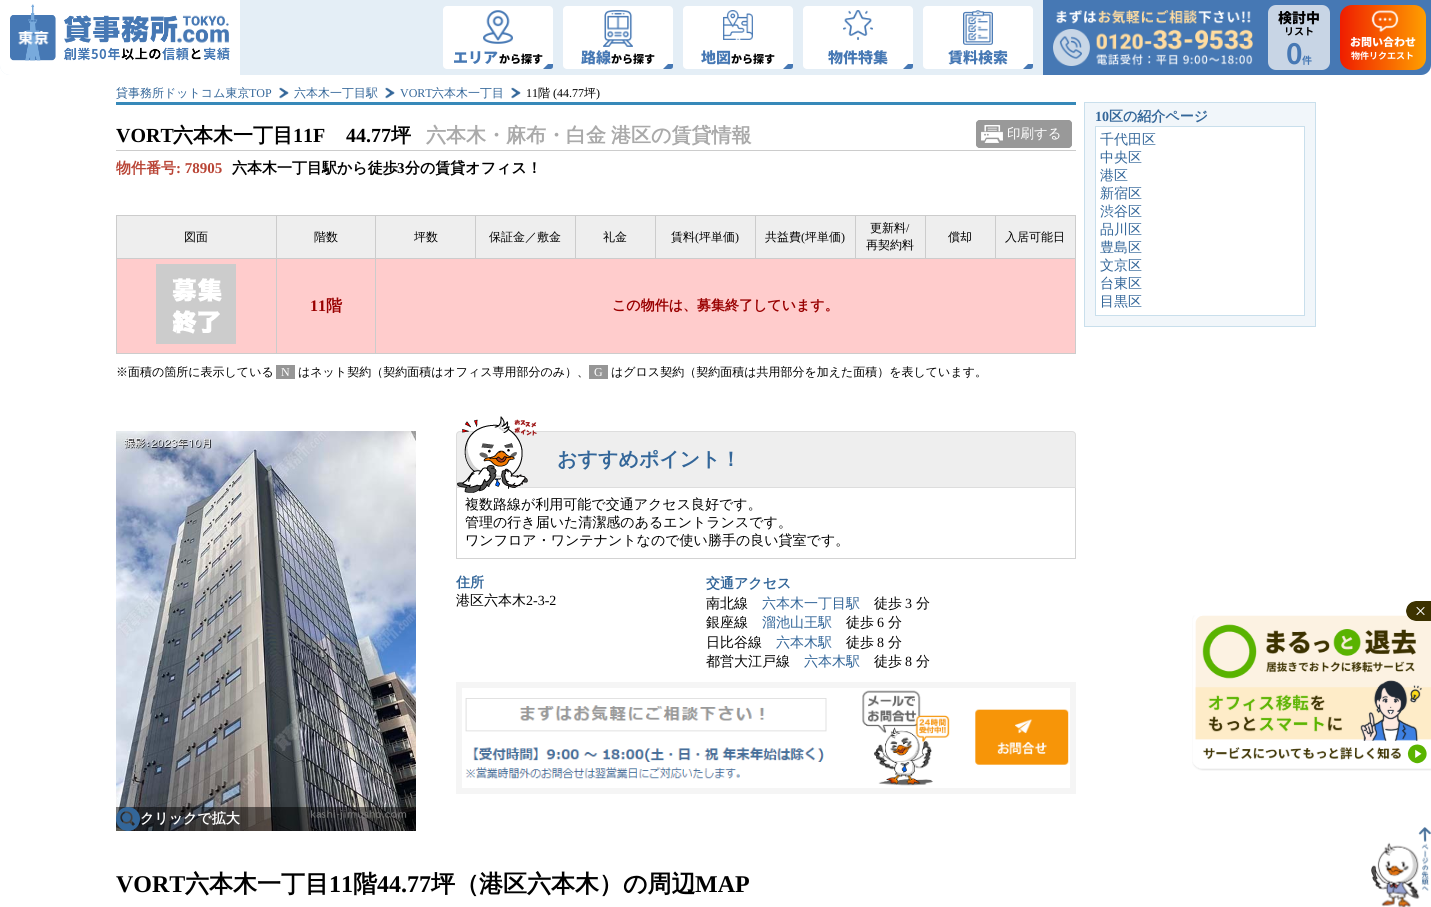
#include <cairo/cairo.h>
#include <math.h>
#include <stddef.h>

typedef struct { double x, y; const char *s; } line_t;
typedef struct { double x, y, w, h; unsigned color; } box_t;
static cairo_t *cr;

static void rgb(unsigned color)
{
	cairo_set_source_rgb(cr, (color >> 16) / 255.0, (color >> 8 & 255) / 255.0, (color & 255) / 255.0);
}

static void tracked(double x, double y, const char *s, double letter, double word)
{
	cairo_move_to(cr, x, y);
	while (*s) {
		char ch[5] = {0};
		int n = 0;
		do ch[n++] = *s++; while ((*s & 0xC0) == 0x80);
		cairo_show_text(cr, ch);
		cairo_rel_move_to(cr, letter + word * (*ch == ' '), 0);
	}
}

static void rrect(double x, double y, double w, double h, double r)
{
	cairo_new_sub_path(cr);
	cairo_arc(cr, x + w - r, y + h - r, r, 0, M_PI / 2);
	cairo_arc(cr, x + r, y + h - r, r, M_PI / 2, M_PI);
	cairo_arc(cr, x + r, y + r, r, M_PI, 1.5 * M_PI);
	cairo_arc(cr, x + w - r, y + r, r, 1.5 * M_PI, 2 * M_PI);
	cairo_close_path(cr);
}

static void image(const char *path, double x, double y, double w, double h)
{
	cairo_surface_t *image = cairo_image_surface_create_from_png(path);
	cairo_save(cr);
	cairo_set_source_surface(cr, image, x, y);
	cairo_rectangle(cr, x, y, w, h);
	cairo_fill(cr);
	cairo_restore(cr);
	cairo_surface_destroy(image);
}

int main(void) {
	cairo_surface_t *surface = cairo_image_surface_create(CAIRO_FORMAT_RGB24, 1431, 907);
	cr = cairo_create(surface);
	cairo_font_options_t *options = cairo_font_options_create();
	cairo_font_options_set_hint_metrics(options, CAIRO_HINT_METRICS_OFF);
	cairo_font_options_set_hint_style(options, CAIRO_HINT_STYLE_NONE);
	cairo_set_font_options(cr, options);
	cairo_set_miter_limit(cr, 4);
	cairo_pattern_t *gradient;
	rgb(0xffffff);
	cairo_paint(cr);
	rgb(0xe4eef6);
	cairo_new_path(cr);
	cairo_move_to(cr, 0, 0);
	cairo_line_to(cr, 1431, 0);
	cairo_line_to(cr, 1431, 65);
	cairo_curve_to(cr, 1431, 70.5, 1426.5, 75, 1421, 75);
	cairo_line_to(cr, 10, 75);
	cairo_curve_to(cr, 4.5, 75, 0, 70.5, 0, 65);
	cairo_close_path(cr);
	cairo_fill(cr);
	rgb(0xffffff);
	cairo_new_path(cr);
	cairo_move_to(cr, 0, 0);
	cairo_line_to(cr, 240, 0);
	cairo_line_to(cr, 240, 75);
	cairo_line_to(cr, 10, 75);
	cairo_curve_to(cr, 4.5, 75, 0, 70.5, 0, 65);
	cairo_close_path(cr);
	cairo_fill(cr);
	image("img/1.png", 10, 4, 220, 57);
	rrect(443, 6, 110, 63, 4);
	cairo_fill(cr);
	image("img/2.png", 483, 10, 30, 34);
	rgb(0x4678b4);
	cairo_new_path(cr);
	cairo_move_to(cr, 550.5, 69);
	cairo_line_to(cr, 543, 69);
	cairo_line_to(cr, 548, 64);
	cairo_line_to(cr, 553, 64);
	cairo_curve_to(cr, 553, 66.5, 553.5, 68.5, 550.5, 69);
	cairo_close_path(cr);
	cairo_fill(cr);
	rgb(0xffffff);
	rrect(563, 6, 110, 63, 4);
	cairo_fill(cr);
	image("img/3.png", 603, 10, 30, 37);
	rgb(0x4678b4);
	cairo_new_path(cr);
	cairo_move_to(cr, 670.5, 69);
	cairo_line_to(cr, 663, 69);
	cairo_line_to(cr, 668, 64);
	cairo_line_to(cr, 673, 64);
	cairo_curve_to(cr, 673, 66.5, 673.5, 68.5, 670.5, 69);
	cairo_close_path(cr);
	cairo_fill(cr);
	rgb(0xffffff);
	rrect(683, 6, 110, 63, 4);
	cairo_fill(cr);
	image("img/4.png", 723, 10, 30, 30);
	rgb(0x4678b4);
	cairo_new_path(cr);
	cairo_move_to(cr, 790.5, 69);
	cairo_line_to(cr, 783, 69);
	cairo_line_to(cr, 788, 64);
	cairo_line_to(cr, 793, 64);
	cairo_curve_to(cr, 793, 66.5, 793.5, 68.5, 790.5, 69);
	cairo_close_path(cr);
	cairo_fill(cr);
	rgb(0xffffff);
	rrect(803, 6, 110, 63, 4);
	cairo_fill(cr);
	image("img/5.png", 843, 10, 30, 30);
	rgb(0x4678b4);
	cairo_new_path(cr);
	cairo_move_to(cr, 910.5, 69);
	cairo_line_to(cr, 903, 69);
	cairo_line_to(cr, 908, 64);
	cairo_line_to(cr, 913, 64);
	cairo_curve_to(cr, 913, 66.5, 913.5, 68.5, 910.5, 69);
	cairo_close_path(cr);
	cairo_fill(cr);
	rgb(0xffffff);
	rrect(923, 6, 110, 63, 4);
	cairo_fill(cr);
	image("img/6.png", 963, 10, 30, 35);
	rgb(0x4678b4);
	cairo_new_path(cr);
	cairo_move_to(cr, 1030.5, 69);
	cairo_line_to(cr, 1023, 69);
	cairo_line_to(cr, 1028, 64);
	cairo_line_to(cr, 1033, 64);
	cairo_curve_to(cr, 1033, 66.5, 1033.5, 68.5, 1030.5, 69);
	cairo_close_path(cr);
	cairo_fill(cr);
	cairo_new_path(cr);
	cairo_move_to(cr, 1043, 0);
	cairo_line_to(cr, 1431, 0);
	cairo_line_to(cr, 1431, 65);
	cairo_curve_to(cr, 1431, 70.5, 1426.5, 75, 1421, 75);
	cairo_line_to(cr, 1043, 75);
	cairo_close_path(cr);
	cairo_fill(cr);
	image("img/7.png", 1053, 10, 200, 56);
	rgb(0xc8d5e5);
	rrect(1268, 5, 62, 65, 8);
	cairo_fill(cr);
	gradient = cairo_pattern_create_linear(1340, 38, 1426, 38);
	cairo_pattern_add_color_stop_rgba(gradient, 0, 0.937, 0.114, 0, 1);
	cairo_pattern_add_color_stop_rgba(gradient, 1, 1, 0.624, 0, 1);
	cairo_set_source(cr, gradient);
	cairo_pattern_destroy(gradient);
	rrect(1340, 5, 86, 65, 12);
	cairo_fill(cr);
	image("img/8.png", 1371, 10, 28, 23);
	image("img/9.png", 1192, 615, 239, 156);
	rgb(0xffffff);
	cairo_new_path(cr);
	cairo_move_to(cr, 1416, 601);
	cairo_line_to(cr, 1431, 601);
	cairo_line_to(cr, 1431, 621);
	cairo_line_to(cr, 1416, 621);
	cairo_curve_to(cr, 1410.5, 621, 1406, 616.5, 1406, 611);
	cairo_curve_to(cr, 1406, 605.5, 1410.5, 601, 1416, 601);
	cairo_close_path(cr);
	cairo_fill(cr);
	image("img/10.png", 1406, 601, 25, 20);
	image("img/11.png", 279, 87, 10, 12);
	image("img/12.png", 385, 87, 10, 12);
	image("img/11.png", 511, 87, 10, 12);
	rgb(0x3789b9);
	cairo_rectangle(cr, 116, 102, 960, 3);
	cairo_fill(cr);
	rgb(0xcccccc);
	cairo_rectangle(cr, 116, 150, 960, 1);
	cairo_fill(cr);
	rgb(0x999999);
	rrect(976, 120, 96, 28, 4);
	cairo_fill(cr);
	image("img/13.png", 981, 125, 22, 18);
	rrect(976.5, 120.5, 95, 27, 3.5);
	cairo_set_line_width(cr, 1);
	cairo_stroke(cr);
	{
		static const box_t items[] = {
			{117, 216, 159, 42, 0xeeeeee},
			{995, 215, 81, 1, 0xcccccc},
			{375, 258, 701, 1, 0xcccccc},
			{995, 215, 1, 44, 0xcccccc},
			{925, 215, 71, 1, 0xcccccc},
			{925, 215, 1, 44, 0xcccccc},
			{855, 215, 71, 1, 0xcccccc},
			{855, 215, 1, 44, 0xcccccc},
			{755, 215, 101, 1, 0xcccccc},
			{755, 215, 1, 44, 0xcccccc},
			{655, 215, 101, 1, 0xcccccc},
			{655, 215, 1, 44, 0xcccccc},
			{575, 215, 81, 1, 0xcccccc},
			{575, 215, 1, 44, 0xcccccc},
			{475, 215, 101, 1, 0xcccccc},
			{475, 215, 1, 44, 0xcccccc},
			{375, 215, 101, 1, 0xcccccc},
			{1075, 258, 1, 96, 0xcccccc},
			{375, 353, 701, 1, 0xcccccc},
			{375, 258, 1, 96, 0xcccccc},
			{276, 258, 100, 1, 0xcccccc},
			{375, 215, 1, 44, 0xcccccc},
			{276, 215, 100, 1, 0xcccccc},
			{276, 353, 100, 1, 0xcccccc},
			{276, 258, 1, 96, 0xcccccc},
			{116, 258, 161, 1, 0xcccccc},
			{276, 215, 1, 44, 0xcccccc},
			{116, 215, 161, 1, 0xcccccc},
			{116, 353, 161, 1, 0xcccccc},
			{116, 258, 1, 96, 0xcccccc},
			{116, 215, 1, 44, 0xcccccc},
			{277, 216, 98, 42, 0xeeeeee},
			{376, 216, 99, 42, 0xeeeeee},
			{476, 216, 99, 42, 0xeeeeee},
			{576, 216, 79, 42, 0xeeeeee},
			{656, 216, 99, 42, 0xeeeeee},
			{756, 216, 99, 42, 0xeeeeee},
			{856, 216, 69, 42, 0xeeeeee},
			{926, 216, 69, 42, 0xeeeeee},
			{996, 216, 79, 42, 0xeeeeee},
			{1075, 215, 1, 44, 0xcccccc},
			{117, 259, 159, 94, 0xffcccc},
		};
		for (size_t i = 0; i < sizeof items / sizeof *items; i++) {
			rgb(items[i].color);
			cairo_rectangle(cr, items[i].x, items[i].y, items[i].w, items[i].h);
			cairo_fill(cr);
		}
	}
	image("img/14.png", 156, 264, 80, 80);
	{
		static const box_t items[] = {
			{277, 259, 98, 94, 0xffcccc},
			{376, 259, 699, 94, 0xffcccc},
			{276, 365, 19, 14, 0x969696},
			{589, 365, 19, 14, 0x969696},
		};
		for (size_t i = 0; i < sizeof items / sizeof *items; i++) {
			rgb(items[i].color);
			cairo_rectangle(cr, items[i].x, items[i].y, items[i].w, items[i].h);
			cairo_fill(cr);
		}
	}
	cairo_rectangle(cr, 456.5, 487.5, 619, 71);
	rgb(0xd3d3d3);
	cairo_stroke(cr);
	rgb(0xeeeeee);
	cairo_new_path(cr);
	cairo_move_to(cr, 460, 431.5);
	cairo_line_to(cr, 1072, 431.5);
	cairo_curve_to(cr, 1074, 431.5, 1075.5, 433, 1075.5, 435);
	cairo_line_to(cr, 1075.5, 487.5);
	cairo_line_to(cr, 456.5, 487.5);
	cairo_line_to(cr, 456.5, 435);
	cairo_curve_to(cr, 456.5, 433, 458, 431.5, 460, 431.5);
	cairo_close_path(cr);
	cairo_fill_preserve(cr);
	rgb(0xdddddd);
	cairo_stroke(cr);
	image("img/15.png", 457, 416, 80, 77);
	rgb(0xf5f5f5);
	cairo_rectangle(cr, 456, 682, 620, 112);
	cairo_fill(cr);
	image("img/16.png", 462, 688, 608, 100);
	image("img/17.png", 116, 431, 300, 400);
	cairo_set_source_rgba(cr, 0, 0, 0, 0.5);
	cairo_rectangle(cr, 116, 807, 300, 24);
	cairo_fill(cr);
	image("img/18.png", 116, 807, 24, 24);
	rgb(0xf1f6fa);
	cairo_rectangle(cr, 1084.5, 102.5, 231, 224);
	cairo_fill_preserve(cr);
	rgb(0xc9dfec);
	cairo_stroke(cr);
	rgb(0xffffff);
	cairo_rectangle(cr, 1095.5, 126.5, 209, 189);
	cairo_fill_preserve(cr);
	rgb(0xc9dfec);
	cairo_stroke(cr);
	image("img/19.png", 1371, 827, 60, 80);
	cairo_select_font_face(cr, "Noto Sans JP Black", CAIRO_FONT_SLANT_NORMAL, CAIRO_FONT_WEIGHT_NORMAL);
	cairo_set_font_size(cr, 15);
	rgb(0x4678b4);
	cairo_move_to(cr, 453, 63);
	cairo_show_text(cr, "エリア");
	cairo_set_font_size(cr, 11);
	rgb(0x000000);
	cairo_move_to(cr, 499, 63);
	cairo_show_text(cr, "から探す");
	cairo_set_font_size(cr, 15);
	rgb(0x4678b4);
	cairo_move_to(cr, 581, 63);
	cairo_show_text(cr, "路線");
	cairo_set_font_size(cr, 11);
	rgb(0x000000);
	cairo_move_to(cr, 611, 63);
	cairo_show_text(cr, "から探す");
	cairo_set_font_size(cr, 15);
	rgb(0x4678b4);
	cairo_move_to(cr, 701, 63);
	cairo_show_text(cr, "地図");
	cairo_set_font_size(cr, 11);
	rgb(0x000000);
	cairo_move_to(cr, 731, 63);
	cairo_show_text(cr, "から探す");
	cairo_set_font_size(cr, 15);
	rgb(0x4678b4);
	cairo_move_to(cr, 828, 63);
	cairo_show_text(cr, "物件特集");
	cairo_move_to(cr, 948, 63);
	cairo_show_text(cr, "賃料検索");
	cairo_set_font_size(cr, 14);
	rgb(0x000000);
	cairo_move_to(cr, 1278, 23);
	cairo_show_text(cr, "検討中");
	cairo_select_font_face(cr, "Noto Sans JP", CAIRO_FONT_SLANT_NORMAL, CAIRO_FONT_WEIGHT_BOLD);
	cairo_set_font_size(cr, 10);
	cairo_move_to(cr, 1284, 35);
	cairo_show_text(cr, "リスト");
	cairo_set_font_size(cr, 28);
	rgb(0x4678b4);
	cairo_move_to(cr, 1286, 64);
	cairo_show_text(cr, "0");
	cairo_set_font_size(cr, 10);
	cairo_move_to(cr, 1302, 64);
	cairo_show_text(cr, "件");
	cairo_select_font_face(cr, "Noto Sans JP Black", CAIRO_FONT_SLANT_NORMAL, CAIRO_FONT_WEIGHT_NORMAL);
	cairo_set_font_size(cr, 11);
	rgb(0xffffff);
	cairo_move_to(cr, 1350, 46);
	cairo_show_text(cr, "お問い合わせ");
	cairo_select_font_face(cr, "Noto Sans JP", CAIRO_FONT_SLANT_NORMAL, CAIRO_FONT_WEIGHT_BOLD);
	cairo_set_font_size(cr, 9);
	cairo_move_to(cr, 1351, 59);
	cairo_show_text(cr, "物件リクエスト");
	cairo_select_font_face(cr, "WenQuanYi Zen Hei Medium", CAIRO_FONT_SLANT_NORMAL, CAIRO_FONT_WEIGHT_NORMAL);
	cairo_set_font_size(cr, 12);
	rgb(0x336699);
	cairo_move_to(cr, 116, 97);
	cairo_show_text(cr, "貸事務所ドットコム東京");
	cairo_select_font_face(cr, "Liberation Serif", CAIRO_FONT_SLANT_NORMAL, CAIRO_FONT_WEIGHT_NORMAL);
	cairo_move_to(cr, 249, 97);
	cairo_show_text(cr, "TOP");
	cairo_select_font_face(cr, "WenQuanYi Zen Hei Medium", CAIRO_FONT_SLANT_NORMAL, CAIRO_FONT_WEIGHT_NORMAL);
	cairo_move_to(cr, 294, 97);
	cairo_show_text(cr, "六本木一丁目駅");
	cairo_select_font_face(cr, "Liberation Serif", CAIRO_FONT_SLANT_NORMAL, CAIRO_FONT_WEIGHT_NORMAL);
	cairo_move_to(cr, 400, 97);
	cairo_show_text(cr, "VORT");
	cairo_select_font_face(cr, "WenQuanYi Zen Hei Medium", CAIRO_FONT_SLANT_NORMAL, CAIRO_FONT_WEIGHT_NORMAL);
	cairo_move_to(cr, 432, 97);
	cairo_show_text(cr, "六本木一丁目");
	cairo_select_font_face(cr, "Liberation Serif", CAIRO_FONT_SLANT_NORMAL, CAIRO_FONT_WEIGHT_NORMAL);
	rgb(0x000000);
	cairo_move_to(cr, 526, 97);
	cairo_show_text(cr, "11");
	cairo_select_font_face(cr, "WenQuanYi Zen Hei Medium", CAIRO_FONT_SLANT_NORMAL, CAIRO_FONT_WEIGHT_NORMAL);
	cairo_move_to(cr, 538, 97);
	cairo_show_text(cr, "階");
	cairo_select_font_face(cr, "Liberation Serif", CAIRO_FONT_SLANT_NORMAL, CAIRO_FONT_WEIGHT_NORMAL);
	cairo_move_to(cr, 553, 97);
	cairo_show_text(cr, "(44.77");
	cairo_select_font_face(cr, "WenQuanYi Zen Hei Medium", CAIRO_FONT_SLANT_NORMAL, CAIRO_FONT_WEIGHT_NORMAL);
	cairo_move_to(cr, 584, 97);
	cairo_show_text(cr, "坪");
	cairo_select_font_face(cr, "Liberation Serif", CAIRO_FONT_SLANT_NORMAL, CAIRO_FONT_WEIGHT_NORMAL);
	cairo_move_to(cr, 596, 97);
	cairo_show_text(cr, ")");
	cairo_select_font_face(cr, "Liberation Serif", CAIRO_FONT_SLANT_NORMAL, CAIRO_FONT_WEIGHT_BOLD);
	cairo_set_font_size(cr, 20);
	cairo_move_to(cr, 116, 142);
	cairo_show_text(cr, "VORT");
	cairo_select_font_face(cr, "WenQuanYi Zen Hei", CAIRO_FONT_SLANT_NORMAL, CAIRO_FONT_WEIGHT_BOLD);
	cairo_move_to(cr, 173, 142);
	cairo_show_text(cr, "六本木一丁目");
	cairo_select_font_face(cr, "Liberation Serif", CAIRO_FONT_SLANT_NORMAL, CAIRO_FONT_WEIGHT_BOLD);
	cairo_move_to(cr, 293, 142);
	cairo_show_text(cr, "11F");
	cairo_move_to(cr, 346, 142);
	cairo_show_text(cr, "44.77");
	cairo_select_font_face(cr, "WenQuanYi Zen Hei", CAIRO_FONT_SLANT_NORMAL, CAIRO_FONT_WEIGHT_BOLD);
	cairo_move_to(cr, 391, 142);
	cairo_show_text(cr, "坪");
	rgb(0xaaaaaa);
	tracked(426, 142, "六本木・麻布・白金 港区の賃貸情報", 0, -1);
	cairo_select_font_face(cr, "WenQuanYi Zen Hei Medium", CAIRO_FONT_SLANT_NORMAL, CAIRO_FONT_WEIGHT_NORMAL);
	cairo_set_font_size(cr, 13.5);
	rgb(0xffffff);
	cairo_move_to(cr, 1007, 138);
	cairo_show_text(cr, "印刷する");
	cairo_select_font_face(cr, "WenQuanYi Zen Hei", CAIRO_FONT_SLANT_NORMAL, CAIRO_FONT_WEIGHT_BOLD);
	cairo_set_font_size(cr, 15);
	rgb(0xb94536);
	cairo_move_to(cr, 116, 173);
	cairo_show_text(cr, "物件番号");
	cairo_select_font_face(cr, "Liberation Serif", CAIRO_FONT_SLANT_NORMAL, CAIRO_FONT_WEIGHT_BOLD);
	cairo_move_to(cr, 176, 173);
	cairo_show_text(cr, ": 78905");
	cairo_select_font_face(cr, "WenQuanYi Zen Hei", CAIRO_FONT_SLANT_NORMAL, CAIRO_FONT_WEIGHT_BOLD);
	rgb(0x000000);
	cairo_move_to(cr, 232, 173);
	cairo_show_text(cr, "六本木一丁目駅から徒歩");
	cairo_select_font_face(cr, "Liberation Serif", CAIRO_FONT_SLANT_NORMAL, CAIRO_FONT_WEIGHT_BOLD);
	cairo_move_to(cr, 397, 173);
	cairo_show_text(cr, "3");
	cairo_select_font_face(cr, "WenQuanYi Zen Hei", CAIRO_FONT_SLANT_NORMAL, CAIRO_FONT_WEIGHT_BOLD);
	cairo_move_to(cr, 405, 173);
	cairo_show_text(cr, "分の賃貸オフィス！");
	cairo_select_font_face(cr, "WenQuanYi Zen Hei Medium", CAIRO_FONT_SLANT_NORMAL, CAIRO_FONT_WEIGHT_NORMAL);
	cairo_set_font_size(cr, 12);
	{
		static const line_t items[] = {
			{184, 241, "図面"},
			{314, 241, "階数"},
			{414, 241, "坪数"},
			{489, 241, "保証金／敷金"},
			{603, 241, "礼金"},
			{671, 241, "賃料"},
		};
		for (size_t i = 0; i < sizeof items / sizeof *items; i++) {
			cairo_move_to(cr, items[i].x, items[i].y);
			cairo_show_text(cr, items[i].s);
		}
	}
	cairo_select_font_face(cr, "Liberation Serif", CAIRO_FONT_SLANT_NORMAL, CAIRO_FONT_WEIGHT_NORMAL);
	cairo_move_to(cr, 695, 241);
	cairo_show_text(cr, "(");
	cairo_select_font_face(cr, "WenQuanYi Zen Hei Medium", CAIRO_FONT_SLANT_NORMAL, CAIRO_FONT_WEIGHT_NORMAL);
	cairo_move_to(cr, 699, 241);
	cairo_show_text(cr, "坪単価");
	cairo_select_font_face(cr, "Liberation Serif", CAIRO_FONT_SLANT_NORMAL, CAIRO_FONT_WEIGHT_NORMAL);
	cairo_move_to(cr, 735, 241);
	cairo_show_text(cr, ")");
	cairo_select_font_face(cr, "WenQuanYi Zen Hei Medium", CAIRO_FONT_SLANT_NORMAL, CAIRO_FONT_WEIGHT_NORMAL);
	cairo_move_to(cr, 765, 241);
	cairo_show_text(cr, "共益費");
	cairo_select_font_face(cr, "Liberation Serif", CAIRO_FONT_SLANT_NORMAL, CAIRO_FONT_WEIGHT_NORMAL);
	cairo_move_to(cr, 801, 241);
	cairo_show_text(cr, "(");
	cairo_select_font_face(cr, "WenQuanYi Zen Hei Medium", CAIRO_FONT_SLANT_NORMAL, CAIRO_FONT_WEIGHT_NORMAL);
	cairo_move_to(cr, 805, 241);
	cairo_show_text(cr, "坪単価");
	cairo_select_font_face(cr, "Liberation Serif", CAIRO_FONT_SLANT_NORMAL, CAIRO_FONT_WEIGHT_NORMAL);
	cairo_move_to(cr, 841, 241);
	cairo_show_text(cr, ")");
	cairo_select_font_face(cr, "WenQuanYi Zen Hei Medium", CAIRO_FONT_SLANT_NORMAL, CAIRO_FONT_WEIGHT_NORMAL);
	cairo_move_to(cr, 870, 232);
	cairo_show_text(cr, "更新料");
	cairo_select_font_face(cr, "Liberation Serif", CAIRO_FONT_SLANT_NORMAL, CAIRO_FONT_WEIGHT_NORMAL);
	cairo_move_to(cr, 906, 232);
	cairo_show_text(cr, "/");
	cairo_select_font_face(cr, "WenQuanYi Zen Hei Medium", CAIRO_FONT_SLANT_NORMAL, CAIRO_FONT_WEIGHT_NORMAL);
	{
		static const line_t items[] = {
			{866, 249, "再契約料"},
			{948, 241, "償却"},
			{1005, 241, "入居可能日"},
		};
		for (size_t i = 0; i < sizeof items / sizeof *items; i++) {
			cairo_move_to(cr, items[i].x, items[i].y);
			cairo_show_text(cr, items[i].s);
		}
	}
	cairo_select_font_face(cr, "Liberation Serif", CAIRO_FONT_SLANT_NORMAL, CAIRO_FONT_WEIGHT_BOLD);
	cairo_set_font_size(cr, 16);
	rgb(0x990000);
	cairo_move_to(cr, 310, 311);
	cairo_show_text(cr, "11");
	cairo_select_font_face(cr, "WenQuanYi Zen Hei", CAIRO_FONT_SLANT_NORMAL, CAIRO_FONT_WEIGHT_BOLD);
	cairo_move_to(cr, 326, 311);
	cairo_show_text(cr, "階");
	cairo_set_font_size(cr, 14);
	cairo_move_to(cr, 612, 310);
	cairo_show_text(cr, "この物件は、募集終了しています。");
	cairo_select_font_face(cr, "WenQuanYi Zen Hei Medium", CAIRO_FONT_SLANT_NORMAL, CAIRO_FONT_WEIGHT_NORMAL);
	cairo_set_font_size(cr, 12);
	rgb(0x000000);
	cairo_move_to(cr, 116, 376);
	cairo_show_text(cr, "※面積の箇所に表示している");
	cairo_select_font_face(cr, "Liberation Serif", CAIRO_FONT_SLANT_NORMAL, CAIRO_FONT_WEIGHT_NORMAL);
	rgb(0xffffff);
	cairo_move_to(cr, 281, 376);
	cairo_show_text(cr, "N");
	cairo_select_font_face(cr, "WenQuanYi Zen Hei Medium", CAIRO_FONT_SLANT_NORMAL, CAIRO_FONT_WEIGHT_NORMAL);
	rgb(0x000000);
	cairo_move_to(cr, 298, 376);
	cairo_show_text(cr, "はネット契約（契約面積はオフィス専用部分のみ）、");
	cairo_select_font_face(cr, "Liberation Serif", CAIRO_FONT_SLANT_NORMAL, CAIRO_FONT_WEIGHT_NORMAL);
	rgb(0xffffff);
	cairo_move_to(cr, 594, 376);
	cairo_show_text(cr, "G");
	cairo_select_font_face(cr, "WenQuanYi Zen Hei Medium", CAIRO_FONT_SLANT_NORMAL, CAIRO_FONT_WEIGHT_NORMAL);
	rgb(0x000000);
	cairo_move_to(cr, 611, 376);
	cairo_show_text(cr, "はグロス契約（契約面積は共用部分を加えた面積）を表しています。");
	cairo_select_font_face(cr, "WenQuanYi Zen Hei", CAIRO_FONT_SLANT_NORMAL, CAIRO_FONT_WEIGHT_BOLD);
	cairo_set_font_size(cr, 20);
	rgb(0x336699);
	cairo_move_to(cr, 557, 466);
	cairo_show_text(cr, "おすすめポイント！");
	cairo_select_font_face(cr, "WenQuanYi Zen Hei Medium", CAIRO_FONT_SLANT_NORMAL, CAIRO_FONT_WEIGHT_NORMAL);
	cairo_set_font_size(cr, 14);
	rgb(0x000000);
	{
		static const line_t items[] = {
			{465, 509, "複数路線が利用可能で交通アクセス良好です。"},
			{465, 527, "管理の行き届いた清潔感のあるエントランスです。"},
			{465, 545, "ワンフロア・ワンテナントなので使い勝手の良い貸室です。"},
		};
		for (size_t i = 0; i < sizeof items / sizeof *items; i++) {
			cairo_move_to(cr, items[i].x, items[i].y);
			cairo_show_text(cr, items[i].s);
		}
	}
	cairo_select_font_face(cr, "WenQuanYi Zen Hei", CAIRO_FONT_SLANT_NORMAL, CAIRO_FONT_WEIGHT_BOLD);
	rgb(0x336699);
	cairo_move_to(cr, 456, 587);
	cairo_show_text(cr, "住所");
	cairo_select_font_face(cr, "WenQuanYi Zen Hei Medium", CAIRO_FONT_SLANT_NORMAL, CAIRO_FONT_WEIGHT_NORMAL);
	rgb(0x000000);
	cairo_move_to(cr, 456, 605);
	cairo_show_text(cr, "港区六本木");
	cairo_select_font_face(cr, "Liberation Serif", CAIRO_FONT_SLANT_NORMAL, CAIRO_FONT_WEIGHT_NORMAL);
	cairo_move_to(cr, 526, 605);
	cairo_show_text(cr, "2-3-2");
	cairo_select_font_face(cr, "WenQuanYi Zen Hei", CAIRO_FONT_SLANT_NORMAL, CAIRO_FONT_WEIGHT_BOLD);
	rgb(0x336699);
	cairo_move_to(cr, 706, 588);
	cairo_show_text(cr, "交通アクセス");
	cairo_select_font_face(cr, "WenQuanYi Zen Hei Medium", CAIRO_FONT_SLANT_NORMAL, CAIRO_FONT_WEIGHT_NORMAL);
	rgb(0x000000);
	cairo_move_to(cr, 706, 608);
	cairo_show_text(cr, "南北線");
	rgb(0x336699);
	cairo_move_to(cr, 762, 608);
	cairo_show_text(cr, "六本木一丁目駅");
	rgb(0x000000);
	cairo_move_to(cr, 874, 608);
	cairo_show_text(cr, "徒歩");
	cairo_select_font_face(cr, "Liberation Serif", CAIRO_FONT_SLANT_NORMAL, CAIRO_FONT_WEIGHT_NORMAL);
	cairo_move_to(cr, 905, 608);
	cairo_show_text(cr, "3");
	cairo_select_font_face(cr, "WenQuanYi Zen Hei Medium", CAIRO_FONT_SLANT_NORMAL, CAIRO_FONT_WEIGHT_NORMAL);
	cairo_move_to(cr, 916, 608);
	cairo_show_text(cr, "分");
	cairo_move_to(cr, 706, 627);
	cairo_show_text(cr, "銀座線");
	rgb(0x336699);
	cairo_move_to(cr, 762, 627);
	cairo_show_text(cr, "溜池山王駅");
	rgb(0x000000);
	cairo_move_to(cr, 846, 627);
	cairo_show_text(cr, "徒歩");
	cairo_select_font_face(cr, "Liberation Serif", CAIRO_FONT_SLANT_NORMAL, CAIRO_FONT_WEIGHT_NORMAL);
	cairo_move_to(cr, 877, 627);
	cairo_show_text(cr, "6");
	cairo_select_font_face(cr, "WenQuanYi Zen Hei Medium", CAIRO_FONT_SLANT_NORMAL, CAIRO_FONT_WEIGHT_NORMAL);
	cairo_move_to(cr, 888, 627);
	cairo_show_text(cr, "分");
	cairo_move_to(cr, 706, 647);
	cairo_show_text(cr, "日比谷線");
	rgb(0x336699);
	cairo_move_to(cr, 776, 647);
	cairo_show_text(cr, "六本木駅");
	rgb(0x000000);
	cairo_move_to(cr, 846, 647);
	cairo_show_text(cr, "徒歩");
	cairo_select_font_face(cr, "Liberation Serif", CAIRO_FONT_SLANT_NORMAL, CAIRO_FONT_WEIGHT_NORMAL);
	cairo_move_to(cr, 877, 647);
	cairo_show_text(cr, "8");
	cairo_select_font_face(cr, "WenQuanYi Zen Hei Medium", CAIRO_FONT_SLANT_NORMAL, CAIRO_FONT_WEIGHT_NORMAL);
	cairo_move_to(cr, 888, 647);
	cairo_show_text(cr, "分");
	cairo_move_to(cr, 706, 666);
	cairo_show_text(cr, "都営大江戸線");
	rgb(0x336699);
	cairo_move_to(cr, 804, 666);
	cairo_show_text(cr, "六本木駅");
	rgb(0x000000);
	cairo_move_to(cr, 874, 666);
	cairo_show_text(cr, "徒歩");
	cairo_select_font_face(cr, "Liberation Serif", CAIRO_FONT_SLANT_NORMAL, CAIRO_FONT_WEIGHT_NORMAL);
	cairo_move_to(cr, 905, 666);
	cairo_show_text(cr, "8");
	cairo_select_font_face(cr, "WenQuanYi Zen Hei Medium", CAIRO_FONT_SLANT_NORMAL, CAIRO_FONT_WEIGHT_NORMAL);
	cairo_move_to(cr, 916, 666);
	cairo_show_text(cr, "分");
	cairo_select_font_face(cr, "WenQuanYi Zen Hei", CAIRO_FONT_SLANT_NORMAL, CAIRO_FONT_WEIGHT_BOLD);
	rgb(0xffffff);
	cairo_move_to(cr, 140, 823);
	cairo_show_text(cr, "クリックで拡大");
	cairo_select_font_face(cr, "Liberation Serif", CAIRO_FONT_SLANT_NORMAL, CAIRO_FONT_WEIGHT_BOLD);
	cairo_set_font_size(cr, 24);
	rgb(0x000000);
	cairo_move_to(cr, 116, 892);
	cairo_show_text(cr, "VORT");
	cairo_select_font_face(cr, "WenQuanYi Zen Hei", CAIRO_FONT_SLANT_NORMAL, CAIRO_FONT_WEIGHT_BOLD);
	cairo_move_to(cr, 185, 892);
	cairo_show_text(cr, "六本木一丁目");
	cairo_select_font_face(cr, "Liberation Serif", CAIRO_FONT_SLANT_NORMAL, CAIRO_FONT_WEIGHT_BOLD);
	cairo_move_to(cr, 329, 892);
	cairo_show_text(cr, "11");
	cairo_select_font_face(cr, "WenQuanYi Zen Hei", CAIRO_FONT_SLANT_NORMAL, CAIRO_FONT_WEIGHT_BOLD);
	cairo_move_to(cr, 353, 892);
	cairo_show_text(cr, "階");
	cairo_select_font_face(cr, "Liberation Serif", CAIRO_FONT_SLANT_NORMAL, CAIRO_FONT_WEIGHT_BOLD);
	cairo_move_to(cr, 377, 892);
	cairo_show_text(cr, "44.77");
	cairo_select_font_face(cr, "WenQuanYi Zen Hei", CAIRO_FONT_SLANT_NORMAL, CAIRO_FONT_WEIGHT_BOLD);
	cairo_move_to(cr, 431, 892);
	cairo_show_text(cr, "坪（港区六本木）の周辺");
	cairo_select_font_face(cr, "Liberation Serif", CAIRO_FONT_SLANT_NORMAL, CAIRO_FONT_WEIGHT_BOLD);
	cairo_move_to(cr, 695, 892);
	cairo_show_text(cr, "MAP");
	cairo_set_font_size(cr, 14);
	rgb(0x336699);
	cairo_move_to(cr, 1095, 121);
	cairo_show_text(cr, "10");
	cairo_select_font_face(cr, "WenQuanYi Zen Hei", CAIRO_FONT_SLANT_NORMAL, CAIRO_FONT_WEIGHT_BOLD);
	cairo_move_to(cr, 1109, 121);
	cairo_show_text(cr, "区の紹介ページ");
	cairo_select_font_face(cr, "WenQuanYi Zen Hei Medium", CAIRO_FONT_SLANT_NORMAL, CAIRO_FONT_WEIGHT_NORMAL);
	{
		static const line_t items[] = {
			{1100, 144, "千代田区"},
			{1100, 162, "中央区"},
			{1100, 180, "港区"},
			{1100, 198, "新宿区"},
			{1100, 216, "渋谷区"},
			{1100, 234, "品川区"},
			{1100, 252, "豊島区"},
			{1100, 270, "文京区"},
			{1100, 288, "台東区"},
			{1100, 306, "目黒区"},
		};
		for (size_t i = 0; i < sizeof items / sizeof *items; i++) {
			cairo_move_to(cr, items[i].x, items[i].y);
			cairo_show_text(cr, items[i].s);
		}
	}
	cairo_surface_write_to_png(surface, "page.png");
	cairo_font_options_destroy(options);
	cairo_destroy(cr);
	cairo_surface_destroy(surface);
	return 0;
}
